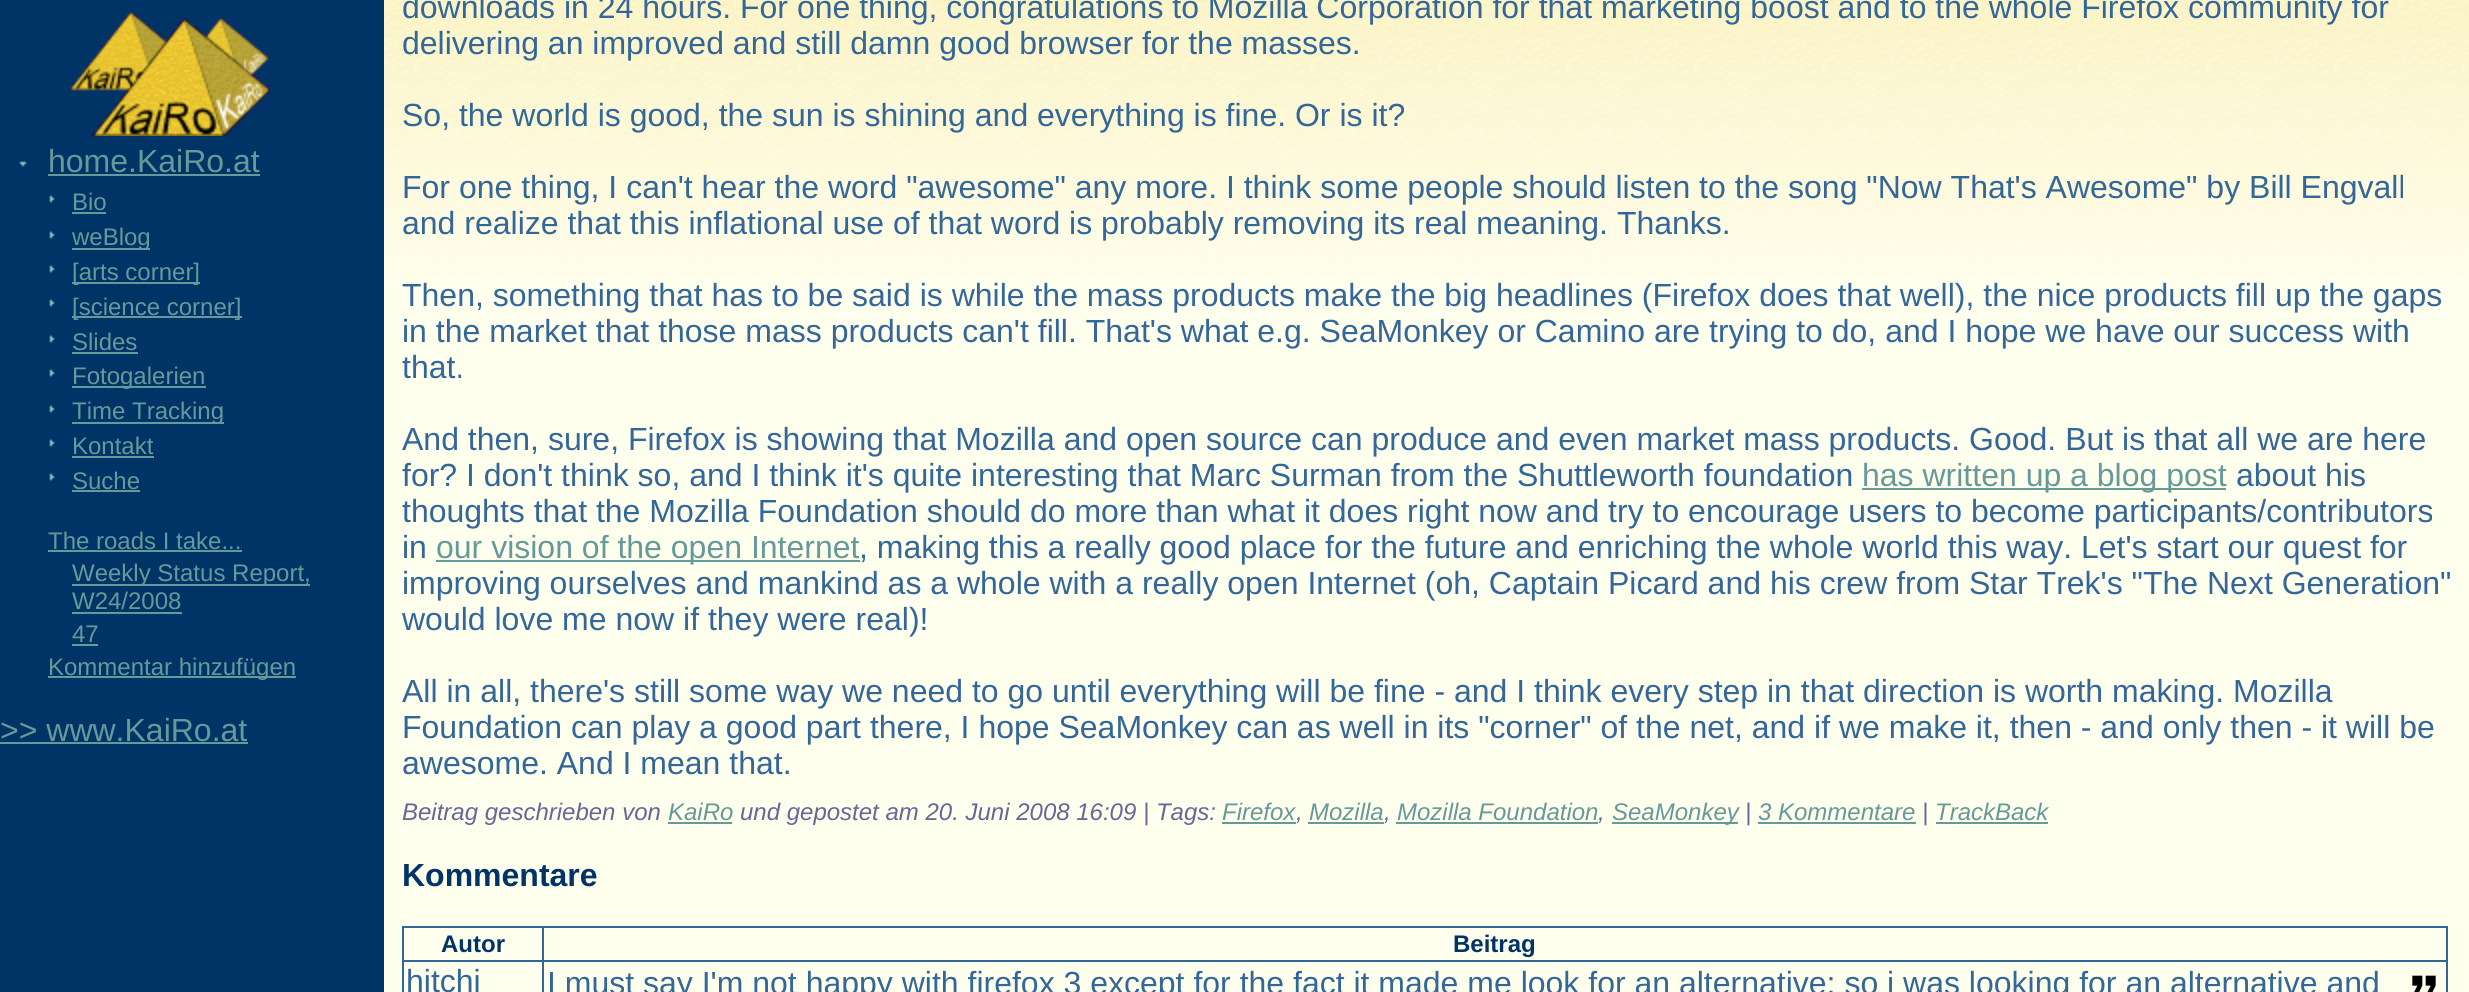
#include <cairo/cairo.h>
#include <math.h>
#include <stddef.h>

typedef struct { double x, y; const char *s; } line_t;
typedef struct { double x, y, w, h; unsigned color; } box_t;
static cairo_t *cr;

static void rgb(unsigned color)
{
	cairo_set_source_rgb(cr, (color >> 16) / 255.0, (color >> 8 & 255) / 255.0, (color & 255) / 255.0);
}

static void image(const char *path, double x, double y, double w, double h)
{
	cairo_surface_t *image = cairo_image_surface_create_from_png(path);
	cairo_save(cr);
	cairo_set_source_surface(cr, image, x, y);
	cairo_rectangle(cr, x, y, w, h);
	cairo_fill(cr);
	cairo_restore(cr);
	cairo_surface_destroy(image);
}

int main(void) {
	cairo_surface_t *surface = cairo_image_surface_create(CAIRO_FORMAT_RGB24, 2469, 992);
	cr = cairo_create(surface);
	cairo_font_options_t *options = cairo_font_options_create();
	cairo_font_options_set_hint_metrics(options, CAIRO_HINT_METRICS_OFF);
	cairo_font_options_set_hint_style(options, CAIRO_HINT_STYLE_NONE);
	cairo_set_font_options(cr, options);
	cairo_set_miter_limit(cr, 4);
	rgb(0xffffee);
	cairo_paint(cr);
	image("img/1.png", 384, 0, 2085, 278);
	rgb(0x003366);
	cairo_rectangle(cr, 0, 0, 384, 992);
	cairo_fill(cr);
	image("img/2.png", 70, 12, 200, 124);
	image("img/3.png", 19, 161, 8, 6);
	rgb(0x669999);
	cairo_rectangle(cr, 48, 174, 212, 2);
	cairo_fill(cr);
	image("img/4.png", 49, 195, 6, 8);
	cairo_rectangle(cr, 72, 212, 34, 2);
	cairo_fill(cr);
	image("img/4.png", 49, 231, 6, 8);
	cairo_rectangle(cr, 72, 248, 78, 2);
	cairo_fill(cr);
	image("img/4.png", 49, 265, 6, 8);
	cairo_rectangle(cr, 72, 282, 128, 2);
	cairo_fill(cr);
	image("img/4.png", 49, 299, 6, 8);
	cairo_rectangle(cr, 72, 316, 170, 2);
	cairo_fill(cr);
	image("img/4.png", 49, 335, 6, 8);
	cairo_rectangle(cr, 72, 352, 66, 2);
	cairo_fill(cr);
	image("img/4.png", 49, 369, 6, 8);
	cairo_rectangle(cr, 72, 386, 134, 2);
	cairo_fill(cr);
	image("img/4.png", 49, 405, 6, 8);
	cairo_rectangle(cr, 72, 422, 152, 2);
	cairo_fill(cr);
	image("img/4.png", 49, 439, 6, 8);
	cairo_rectangle(cr, 72, 456, 82, 2);
	cairo_fill(cr);
	image("img/4.png", 49, 473, 6, 8);
	{
		static const box_t items[] = {
			{72, 490, 68, 2, 0x669999},
			{48, 550, 194, 2, 0x669999},
			{72, 584, 238, 2, 0x669999},
			{72, 612, 110, 2, 0x669999},
			{72, 644, 26, 2, 0x669999},
			{48, 676, 248, 2, 0x669999},
			{0, 742, 248, 2, 0x669999},
			{1862, 488, 364, 2, 0x669999},
			{436, 560, 424, 2, 0x669999},
			{668, 822, 64, 2, 0x669999},
			{1222, 822, 74, 2, 0x669999},
			{1308, 822, 76, 2, 0x669999},
			{1396, 822, 202, 2, 0x669999},
			{1612, 822, 126, 2, 0x669999},
			{1758, 822, 158, 2, 0x669999},
			{1936, 822, 112, 2, 0x669999},
			{402, 926, 2046, 2, 0x336699},
			{402, 926, 2, 66, 0x336699},
			{542, 960, 2, 32, 0x336699},
			{2446, 926, 2, 66, 0x336699},
			{542, 960, 1906, 2, 0x336699},
			{542, 926, 2, 36, 0x336699},
			{402, 960, 142, 2, 0x336699},
		};
		for (size_t i = 0; i < sizeof items / sizeof *items; i++) {
			rgb(items[i].color);
			cairo_rectangle(cr, items[i].x, items[i].y, items[i].w, items[i].h);
			cairo_fill(cr);
		}
	}
	image("img/5.png", 2412, 975, 24, 17);
	cairo_select_font_face(cr, "Liberation Sans", CAIRO_FONT_SLANT_NORMAL, CAIRO_FONT_WEIGHT_NORMAL);
	cairo_set_font_size(cr, 32);
	rgb(0x669999);
	cairo_move_to(cr, 48, 172);
	cairo_show_text(cr, "home.KaiRo.at");
	cairo_set_font_size(cr, 24);
	{
		static const line_t items[] = {
			{72, 210, "Bio"},
			{72, 245, "weBlog"},
			{72, 280, "[arts corner]"},
			{72, 315, "[science corner]"},
			{72, 350, "Slides"},
			{72, 384, "Fotogalerien"},
			{72, 419, "Time Tracking"},
			{72, 454, "Kontakt"},
			{72, 489, "Suche"},
			{48, 549, "The roads I take..."},
			{72, 581, "Weekly Status Report,"},
			{72, 609, "W24/2008"},
			{72, 642, "47"},
			{48, 675, "Kommentar hinzufügen"},
		};
		for (size_t i = 0; i < sizeof items / sizeof *items; i++) {
			cairo_move_to(cr, items[i].x, items[i].y);
			cairo_show_text(cr, items[i].s);
		}
	}
	cairo_set_font_size(cr, 32);
	cairo_move_to(cr, 0, 741);
	cairo_show_text(cr, ">> www.KaiRo.at");
	rgb(0x336699);
	{
		static const line_t items[] = {
			{402, 18, "downloads in 24 hours. For one thing, congratulations to Mozilla Corporation for that marketing boost and to the whole Firefox community for"},
			{402, 54, "delivering an improved and still damn good browser for the masses."},
			{402, 126, "So, the world is good, the sun is shining and everything is fine. Or is it?"},
			{402, 198, "For one thing, I can't hear the word \"awesome\" any more. I think some people should listen to the song \"Now That's Awesome\" by Bill Engvall"},
			{402, 234, "and realize that this inflational use of that word is probably removing its real meaning. Thanks."},
			{402, 306, "Then, something that has to be said is while the mass products make the big headlines (Firefox does that well), the nice products fill up the gaps"},
			{402, 342, "in the market that those mass products can't fill. That's what e.g. SeaMonkey or Camino are trying to do, and I hope we have our success with"},
			{402, 378, "that."},
			{402, 450, "And then, sure, Firefox is showing that Mozilla and open source can produce and even market mass products. Good. But is that all we are here"},
			{402, 486, "for? I don't think so, and I think it's quite interesting that Marc Surman from the Shuttleworth foundation"},
		};
		for (size_t i = 0; i < sizeof items / sizeof *items; i++) {
			cairo_move_to(cr, items[i].x, items[i].y);
			cairo_show_text(cr, items[i].s);
		}
	}
	rgb(0x669999);
	cairo_move_to(cr, 1862, 486);
	cairo_show_text(cr, "has written up a blog post");
	rgb(0x336699);
	{
		static const line_t items[] = {
			{2236, 486, "about his"},
			{402, 522, "thoughts that the Mozilla Foundation should do more than what it does right now and try to encourage users to become participants/contributors"},
			{402, 558, "in"},
		};
		for (size_t i = 0; i < sizeof items / sizeof *items; i++) {
			cairo_move_to(cr, items[i].x, items[i].y);
			cairo_show_text(cr, items[i].s);
		}
	}
	rgb(0x669999);
	cairo_move_to(cr, 436, 558);
	cairo_show_text(cr, "our vision of the open Internet");
	rgb(0x336699);
	{
		static const line_t items[] = {
			{859, 558, ", making this a really good place for the future and enriching the whole world this way. Let's start our quest for"},
			{402, 594, "improving ourselves and mankind as a whole with a really open Internet (oh, Captain Picard and his crew from Star Trek's \"The Next Generation\""},
			{402, 630, "would love me now if they were real)!"},
			{402, 702, "All in all, there's still some way we need to go until everything will be fine - and I think every step in that direction is worth making. Mozilla"},
			{402, 738, "Foundation can play a good part there, I hope SeaMonkey can as well in its \"corner\" of the net, and if we make it, then - and only then - it will be"},
			{402, 774, "awesome. And I mean that."},
		};
		for (size_t i = 0; i < sizeof items / sizeof *items; i++) {
			cairo_move_to(cr, items[i].x, items[i].y);
			cairo_show_text(cr, items[i].s);
		}
	}
	cairo_select_font_face(cr, "Liberation Sans", CAIRO_FONT_SLANT_ITALIC, CAIRO_FONT_WEIGHT_NORMAL);
	cairo_set_font_size(cr, 24);
	rgb(0x666699);
	cairo_move_to(cr, 402, 820);
	cairo_show_text(cr, "Beitrag geschrieben von");
	rgb(0x669999);
	cairo_move_to(cr, 668, 820);
	cairo_show_text(cr, "KaiRo");
	rgb(0x666699);
	cairo_move_to(cr, 740, 820);
	cairo_show_text(cr, "und gepostet am 20. Juni 2008 16:09 | Tags:");
	rgb(0x669999);
	cairo_move_to(cr, 1222, 820);
	cairo_show_text(cr, "Firefox");
	rgb(0x666699);
	cairo_move_to(cr, 1296, 820);
	cairo_show_text(cr, ",");
	rgb(0x669999);
	cairo_move_to(cr, 1309, 820);
	cairo_show_text(cr, "Mozilla");
	rgb(0x666699);
	cairo_move_to(cr, 1384, 820);
	cairo_show_text(cr, ",");
	rgb(0x669999);
	cairo_move_to(cr, 1397, 820);
	cairo_show_text(cr, "Mozilla Foundation");
	rgb(0x666699);
	cairo_move_to(cr, 1598, 820);
	cairo_show_text(cr, ",");
	rgb(0x669999);
	cairo_move_to(cr, 1612, 820);
	cairo_show_text(cr, "SeaMonkey");
	rgb(0x666699);
	cairo_move_to(cr, 1745, 820);
	cairo_show_text(cr, "|");
	rgb(0x669999);
	cairo_move_to(cr, 1758, 820);
	cairo_show_text(cr, "3 Kommentare");
	rgb(0x666699);
	cairo_move_to(cr, 1922, 820);
	cairo_show_text(cr, "|");
	rgb(0x669999);
	cairo_move_to(cr, 1935, 820);
	cairo_show_text(cr, "TrackBack");
	cairo_select_font_face(cr, "Liberation Sans", CAIRO_FONT_SLANT_NORMAL, CAIRO_FONT_WEIGHT_BOLD);
	cairo_set_font_size(cr, 32);
	rgb(0x003366);
	cairo_move_to(cr, 402, 886);
	cairo_show_text(cr, "Kommentare");
	cairo_set_font_size(cr, 24);
	cairo_move_to(cr, 441, 952);
	cairo_show_text(cr, "Autor");
	cairo_move_to(cr, 1453, 952);
	cairo_show_text(cr, "Beitrag");
	cairo_select_font_face(cr, "Liberation Sans", CAIRO_FONT_SLANT_NORMAL, CAIRO_FONT_WEIGHT_NORMAL);
	cairo_set_font_size(cr, 32);
	rgb(0x336699);
	cairo_move_to(cr, 406, 992);
	cairo_show_text(cr, "hitchi");
	cairo_move_to(cr, 547, 994);
	cairo_show_text(cr, "I must say I'm not happy with firefox 3 except for the fact it made me look for an alternative; so i was looking for an alternative and");
	cairo_surface_write_to_png(surface, "page.png");
	cairo_font_options_destroy(options);
	cairo_destroy(cr);
	cairo_surface_destroy(surface);
	return 0;
}
